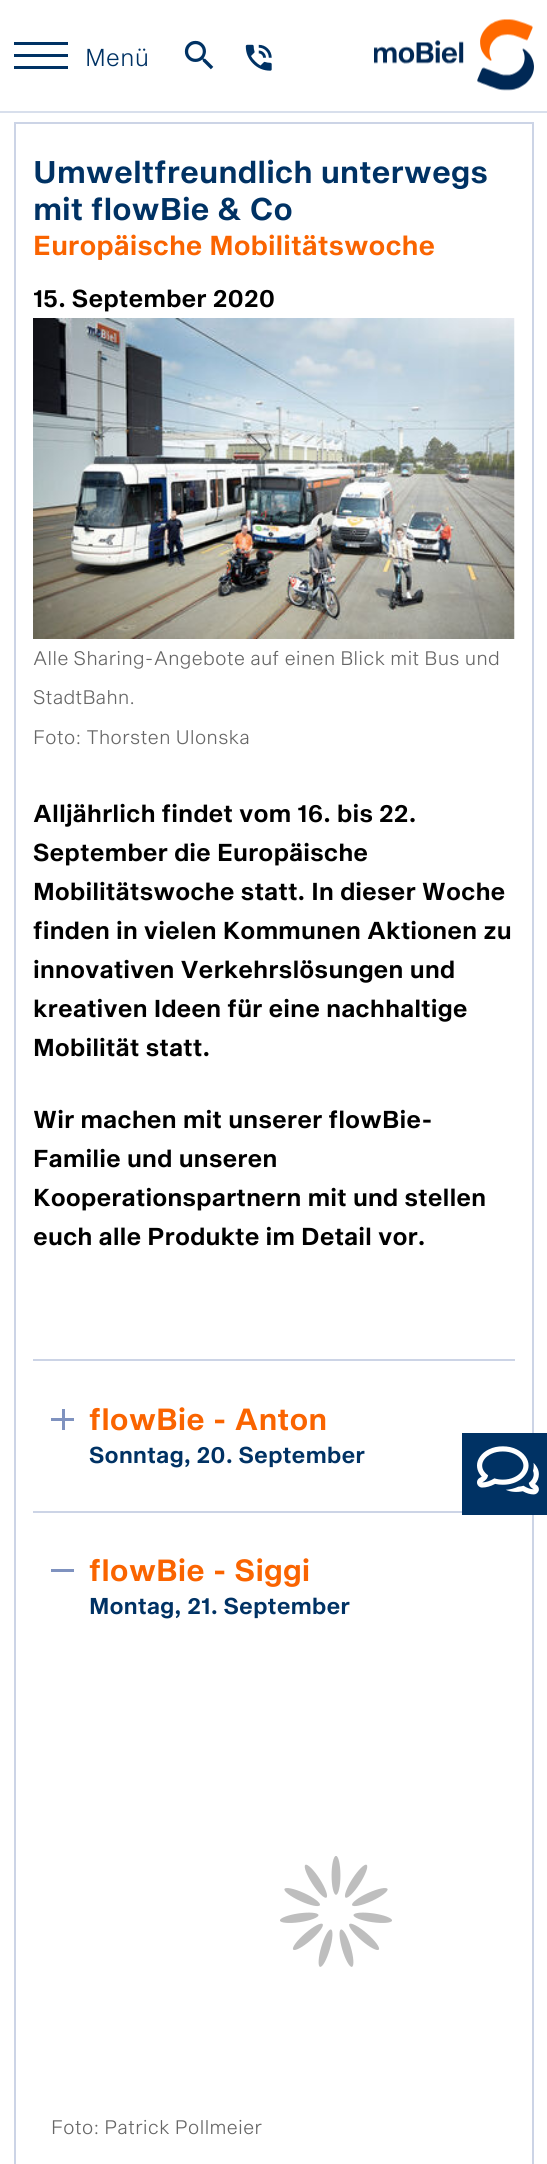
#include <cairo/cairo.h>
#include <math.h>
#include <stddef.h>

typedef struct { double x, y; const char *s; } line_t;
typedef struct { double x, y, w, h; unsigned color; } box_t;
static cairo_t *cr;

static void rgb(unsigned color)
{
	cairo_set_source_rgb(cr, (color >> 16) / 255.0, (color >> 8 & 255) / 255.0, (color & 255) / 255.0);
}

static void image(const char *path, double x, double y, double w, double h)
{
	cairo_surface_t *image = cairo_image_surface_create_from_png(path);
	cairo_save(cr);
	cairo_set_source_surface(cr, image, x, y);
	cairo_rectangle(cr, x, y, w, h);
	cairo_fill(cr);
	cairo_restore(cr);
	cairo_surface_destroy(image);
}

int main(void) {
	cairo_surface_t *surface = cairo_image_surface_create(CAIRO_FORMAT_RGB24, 547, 2164);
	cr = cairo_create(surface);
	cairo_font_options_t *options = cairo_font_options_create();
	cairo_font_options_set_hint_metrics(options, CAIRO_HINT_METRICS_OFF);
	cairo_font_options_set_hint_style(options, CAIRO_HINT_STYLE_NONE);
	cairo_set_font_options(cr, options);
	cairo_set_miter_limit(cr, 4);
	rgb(0xffffff);
	cairo_paint(cr);
	{
		static const box_t items[] = {
			{0, 111, 547, 2, 0xd8dfec},
			{14, 42, 54, 3, 0x003264},
			{14, 54, 54, 3, 0x003264},
			{14, 66, 54, 3, 0x003264},
		};
		for (size_t i = 0; i < sizeof items / sizeof *items; i++) {
			rgb(items[i].color);
			cairo_rectangle(cr, items[i].x, items[i].y, items[i].w, items[i].h);
			cairo_fill(cr);
		}
	}
	image("img/1.png", 184, 40, 30, 30);
	image("img/2.png", 245, 44, 27, 27);
	image("img/3.png", 374, 19, 160, 72);
	cairo_rectangle(cr, 15, 123, 518, 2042);
	rgb(0xccd4e6);
	cairo_stroke(cr);
	image("img/4.png", 33, 318, 482, 321);
	{
		static const box_t items[] = {
			{33, 1359, 482, 2, 0xccd4e6},
			{51, 1418, 23, 3, 0x7f92bf},
			{62, 1409, 3, 21, 0x7f92bf},
			{33, 1511, 429, 2, 0xccd4e6},
			{51, 1569, 23, 3, 0x7f92bf},
		};
		for (size_t i = 0; i < sizeof items / sizeof *items; i++) {
			rgb(items[i].color);
			cairo_rectangle(cr, items[i].x, items[i].y, items[i].w, items[i].h);
			cairo_fill(cr);
		}
	}
	image("img/5.png", 280, 1856, 112, 111);
	rgb(0x003264);
	cairo_rectangle(cr, 462, 1433, 85, 82);
	cairo_fill(cr);
	image("img/6.png", 477, 1446, 62, 49);
	cairo_select_font_face(cr, "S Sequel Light", CAIRO_FONT_SLANT_NORMAL, CAIRO_FONT_WEIGHT_NORMAL);
	cairo_set_font_size(cr, 24);
	cairo_move_to(cr, 85, 66);
	cairo_show_text(cr, "Menü");
	cairo_select_font_face(cr, "S Sequel Thin", CAIRO_FONT_SLANT_NORMAL, CAIRO_FONT_WEIGHT_NORMAL);
	cairo_set_font_size(cr, 30.75);
	cairo_move_to(cr, 33, 183);
	cairo_show_text(cr, "Umweltfreundlich unterwegs");
	cairo_move_to(cr, 33, 220);
	cairo_show_text(cr, "mit flowBie & Co");
	cairo_set_font_size(cr, 26.9);
	rgb(0xfa6400);
	cairo_move_to(cr, 33, 255);
	cairo_show_text(cr, "Europäische Mobilitätswoche");
	cairo_set_font_size(cr, 24);
	rgb(0x000000);
	cairo_move_to(cr, 33, 307);
	cairo_show_text(cr, "15. September 2020");
	cairo_select_font_face(cr, "S Sequel Light", CAIRO_FONT_SLANT_NORMAL, CAIRO_FONT_WEIGHT_NORMAL);
	cairo_set_font_size(cr, 19.2);
	rgb(0x666666);
	{
		static const line_t items[] = {
			{33, 665, "Alle Sharing-Angebote auf einen Blick mit Bus und"},
			{33, 704, "StadtBahn."},
			{33, 744, "Foto: Thorsten Ulonska"},
		};
		for (size_t i = 0; i < sizeof items / sizeof *items; i++) {
			cairo_move_to(cr, items[i].x, items[i].y);
			cairo_show_text(cr, items[i].s);
		}
	}
	cairo_select_font_face(cr, "S Sequel Thin", CAIRO_FONT_SLANT_NORMAL, CAIRO_FONT_WEIGHT_NORMAL);
	cairo_set_font_size(cr, 24);
	rgb(0x000000);
	{
		static const line_t items[] = {
			{33, 822, "Alljährlich findet vom 16. bis 22."},
			{33, 861, "September die Europäische"},
			{33, 900, "Mobilitätswoche statt. In dieser Woche"},
			{33, 939, "finden in vielen Kommunen Aktionen zu"},
			{33, 978, "innovativen Verkehrslösungen und"},
			{33, 1017, "kreativen Ideen für eine nachhaltige"},
			{33, 1056, "Mobilität statt."},
			{33, 1128, "Wir machen mit unserer flowBie-"},
			{33, 1167, "Familie und unseren"},
			{33, 1206, "Kooperationspartnern mit und stellen"},
			{33, 1245, "euch alle Produkte im Detail vor."},
		};
		for (size_t i = 0; i < sizeof items / sizeof *items; i++) {
			cairo_move_to(cr, items[i].x, items[i].y);
			cairo_show_text(cr, items[i].s);
		}
	}
	cairo_set_font_size(cr, 30);
	rgb(0xfa6400);
	cairo_move_to(cr, 89, 1430);
	cairo_show_text(cr, "flowBie - Anton");
	cairo_set_font_size(cr, 22.5);
	rgb(0x003264);
	cairo_move_to(cr, 89, 1463);
	cairo_show_text(cr, "Sonntag, 20. September");
	cairo_set_font_size(cr, 30);
	rgb(0xfa6400);
	cairo_move_to(cr, 89, 1581);
	cairo_show_text(cr, "flowBie - Siggi");
	cairo_set_font_size(cr, 22.5);
	rgb(0x003264);
	cairo_move_to(cr, 89, 1614);
	cairo_show_text(cr, "Montag, 21. September");
	cairo_select_font_face(cr, "S Sequel Light", CAIRO_FONT_SLANT_NORMAL, CAIRO_FONT_WEIGHT_NORMAL);
	cairo_set_font_size(cr, 19.2);
	rgb(0x666666);
	cairo_move_to(cr, 51, 2134);
	cairo_show_text(cr, "Foto: Patrick Pollmeier");
	cairo_surface_write_to_png(surface, "page.png");
	cairo_font_options_destroy(options);
	cairo_destroy(cr);
	cairo_surface_destroy(surface);
	return 0;
}
